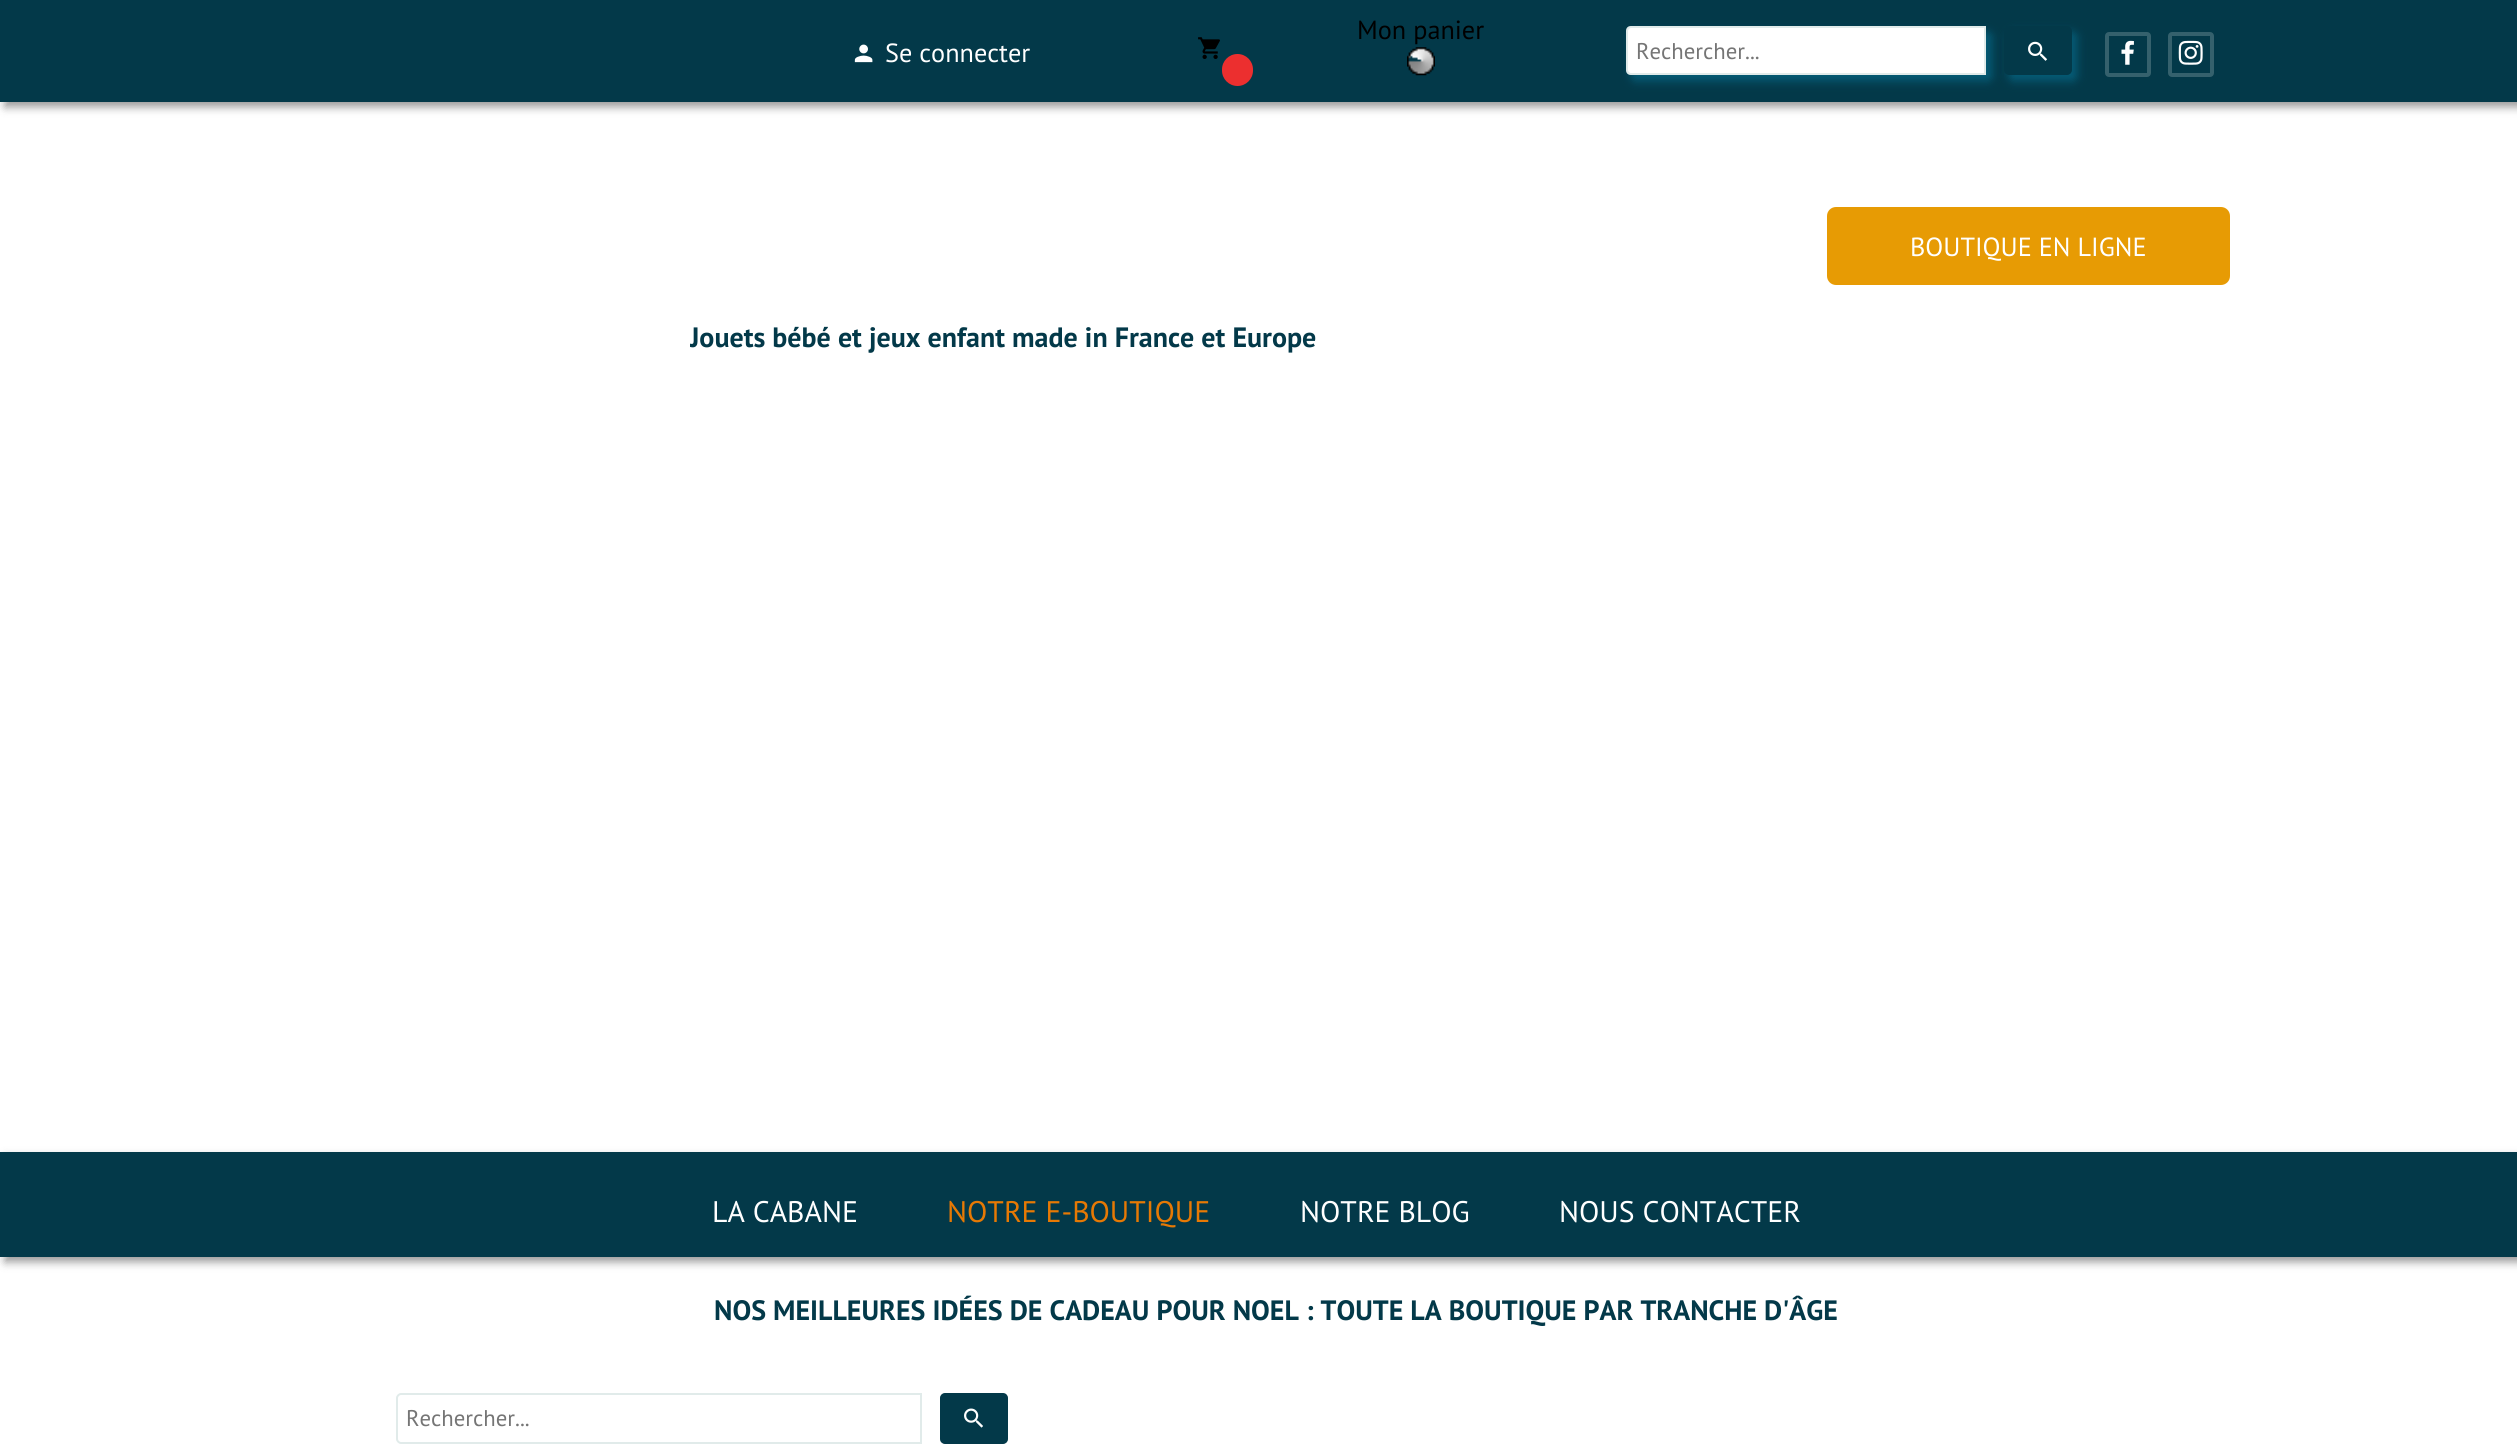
#include <cairo/cairo.h>
#include <math.h>
#include <stddef.h>

static cairo_t *cr;

static void rgb(unsigned color)
{
	cairo_set_source_rgb(cr, (color >> 16) / 255.0, (color >> 8 & 255) / 255.0, (color & 255) / 255.0);
}

static void rrect(double x, double y, double w, double h, double r)
{
	cairo_new_sub_path(cr);
	cairo_arc(cr, x + w - r, y + h - r, r, 0, M_PI / 2);
	cairo_arc(cr, x + r, y + h - r, r, M_PI / 2, M_PI);
	cairo_arc(cr, x + r, y + r, r, M_PI, 1.5 * M_PI);
	cairo_arc(cr, x + w - r, y + r, r, 1.5 * M_PI, 2 * M_PI);
	cairo_close_path(cr);
}

static void soft_shadow(double x, double y, double w, double h, double r, double blur, double alpha)
{
	cairo_push_group_with_content(cr, CAIRO_CONTENT_ALPHA);
	cairo_set_operator(cr, CAIRO_OPERATOR_SOURCE);
	for (int i = 15; i >= -15 && fmin(w, h) + blur * i / 3 > 0; i -= 2) {
		double e = blur * i / 6;
		cairo_set_source_rgba(cr, 0, 0, 0, alpha * erfc((i - 1) / 8.5) / 2);
		rrect(x - e, y - e, w + 2 * e, h + 2 * e, fmax(0, fmin(r + e + blur * .6, fmin(w, h) / 2 + e)));
		cairo_fill(cr);
	}
	cairo_pattern_t *soft = cairo_pop_group(cr);
	cairo_mask(cr, soft);
	cairo_pattern_destroy(soft);
}

static void image(const char *path, double x, double y, double w, double h)
{
	cairo_surface_t *image = cairo_image_surface_create_from_png(path);
	cairo_save(cr);
	cairo_set_source_surface(cr, image, x, y);
	cairo_rectangle(cr, x, y, w, h);
	cairo_fill(cr);
	cairo_restore(cr);
	cairo_surface_destroy(image);
}

int main(void) {
	cairo_surface_t *surface = cairo_image_surface_create(CAIRO_FORMAT_RGB24, 2517, 1447);
	cr = cairo_create(surface);
	cairo_font_options_t *options = cairo_font_options_create();
	cairo_font_options_set_hint_metrics(options, CAIRO_HINT_METRICS_OFF);
	cairo_font_options_set_hint_style(options, CAIRO_HINT_STYLE_NONE);
	cairo_set_font_options(cr, options);
	cairo_set_miter_limit(cr, 4);
	rgb(0xffffff);
	cairo_paint(cr);
	rgb(0x000000);
	soft_shadow(5, 5, 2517, 102, 0, 4.5, 0.4);
	rgb(0x033949);
	cairo_rectangle(cr, 0, 0, 2517, 102);
	cairo_fill(cr);
	image("img/1.png", 854, 44, 19, 19);
	image("img/2.png", 1407, 47, 28, 29);
	image("img/3.png", 1198, 37, 22, 22);
	rgb(0xec2f2f);
	rrect(1222, 54, 31, 32, 15.5);
	cairo_fill(cr);
	rgb(0x055b76);
	soft_shadow(2009, 32, 68, 49, 5, 4.5, 1);
	rgb(0x033949);
	rrect(2005, 27, 66, 47, 4);
	cairo_fill_preserve(cr);
	cairo_stroke(cr);
	rgb(0x055b76);
	soft_shadow(1631, 32, 361, 49, 5, 4.5, 1);
	rgb(0xffffff);
	cairo_new_path(cr);
	cairo_move_to(cr, 1631, 26);
	cairo_line_to(cr, 1986, 26);
	cairo_line_to(cr, 1986, 75);
	cairo_line_to(cr, 1631, 75);
	cairo_curve_to(cr, 1628, 75, 1626, 73, 1626, 70);
	cairo_line_to(cr, 1626, 31);
	cairo_curve_to(cr, 1626, 28, 1628, 26, 1631, 26);
	cairo_close_path(cr);
	cairo_fill(cr);
	cairo_new_path(cr);
	cairo_move_to(cr, 1631, 27);
	cairo_line_to(cr, 1985, 27);
	cairo_line_to(cr, 1985, 74);
	cairo_line_to(cr, 1631, 74);
	cairo_curve_to(cr, 1629, 74, 1627, 72, 1627, 70);
	cairo_line_to(cr, 1627, 31);
	cairo_curve_to(cr, 1627, 29, 1629, 27, 1631, 27);
	cairo_close_path(cr);
	cairo_set_source_rgba(cr, 0.004, 0.357, 0.314, 0.12);
	cairo_stroke(cr);
	image("img/4.png", 2028, 41, 20, 20);
	rrect(2107, 34, 42, 41, 2);
	rgb(0x35616d);
	cairo_set_line_width(cr, 4);
	cairo_stroke(cr);
	image("img/5.png", 2121, 40, 13, 25);
	rrect(2170, 34, 42, 41, 2);
	cairo_stroke(cr);
	image("img/6.png", 2178, 40, 25, 25);
	rgb(0xe79b04);
	rrect(1827, 207, 403, 78, 9);
	cairo_fill(cr);
	rgb(0x000000);
	soft_shadow(5, 1157, 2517, 105, 0, 4.5, 0.4);
	rgb(0x033949);
	cairo_rectangle(cr, 0, 1152, 2517, 105);
	cairo_fill(cr);
	cairo_new_path(cr);
	cairo_move_to(cr, 401, 1394);
	cairo_line_to(cr, 921, 1394);
	cairo_line_to(cr, 921, 1443);
	cairo_line_to(cr, 401, 1443);
	cairo_curve_to(cr, 399, 1443, 397, 1441, 397, 1439);
	cairo_line_to(cr, 397, 1398);
	cairo_curve_to(cr, 397, 1396, 399, 1394, 401, 1394);
	cairo_close_path(cr);
	rgb(0xe1ebea);
	cairo_set_line_width(cr, 2);
	cairo_stroke(cr);
	rgb(0x033949);
	rrect(941, 1394, 66, 49, 4);
	cairo_fill_preserve(cr);
	cairo_stroke(cr);
	image("img/7.png", 964, 1408, 19, 20);
	cairo_select_font_face(cr, "PT Sans", CAIRO_FONT_SLANT_NORMAL, CAIRO_FONT_WEIGHT_NORMAL);
	cairo_set_font_size(cr, 26.25);
	rgb(0xffffff);
	cairo_move_to(cr, 885, 62);
	cairo_show_text(cr, "Se connecter");
	rgb(0x000000);
	cairo_move_to(cr, 1357, 39);
	cairo_show_text(cr, "Mon panier");
	cairo_set_font_size(cr, 22.75);
	rgb(0x757575);
	cairo_move_to(cr, 1636, 59);
	cairo_show_text(cr, "Rechercher...");
	cairo_set_font_size(cr, 26.25);
	rgb(0xffffff);
	cairo_move_to(cr, 1910, 256);
	cairo_show_text(cr, "BOUTIQUE EN LIGNE");
	cairo_save(cr);
	cairo_rectangle(cr, 690, 319, 1162, 35);
	cairo_clip(cr);
	cairo_select_font_face(cr, "PT Sans", CAIRO_FONT_SLANT_NORMAL, CAIRO_FONT_WEIGHT_BOLD);
	cairo_set_font_size(cr, 28);
	rgb(0x033949);
	cairo_move_to(cr, 690, 347);
	cairo_show_text(cr, "Jouets bébé et jeux enfant made in France et Europe");
	cairo_restore(cr);
	cairo_set_font_size(cr, 29.75);
	cairo_move_to(cr, 712, 1222);
	cairo_show_text(cr, "LA CABANE");
	rgb(0xe77904);
	cairo_move_to(cr, 947, 1222);
	cairo_show_text(cr, "NOTRE E-BOUTIQUE");
	rgb(0xffffff);
	cairo_move_to(cr, 1300, 1222);
	cairo_show_text(cr, "NOTRE BLOG");
	cairo_move_to(cr, 1559, 1222);
	cairo_show_text(cr, "NOUS CONTACTER");
	cairo_select_font_face(cr, "PT Sans", CAIRO_FONT_SLANT_NORMAL, CAIRO_FONT_WEIGHT_BOLD);
	cairo_set_font_size(cr, 28);
	rgb(0x033949);
	cairo_move_to(cr, 714, 1320);
	cairo_show_text(cr, "NOS MEILLEURES IDÉES DE CADEAU POUR NOEL : TOUTE LA BOUTIQUE PAR TRANCHE D'ÂGE");
	cairo_select_font_face(cr, "PT Sans", CAIRO_FONT_SLANT_NORMAL, CAIRO_FONT_WEIGHT_NORMAL);
	cairo_set_font_size(cr, 22.75);
	rgb(0x757575);
	cairo_move_to(cr, 406, 1426);
	cairo_show_text(cr, "Rechercher...");
	cairo_surface_write_to_png(surface, "page.png");
	cairo_font_options_destroy(options);
	cairo_destroy(cr);
	cairo_surface_destroy(surface);
	return 0;
}
